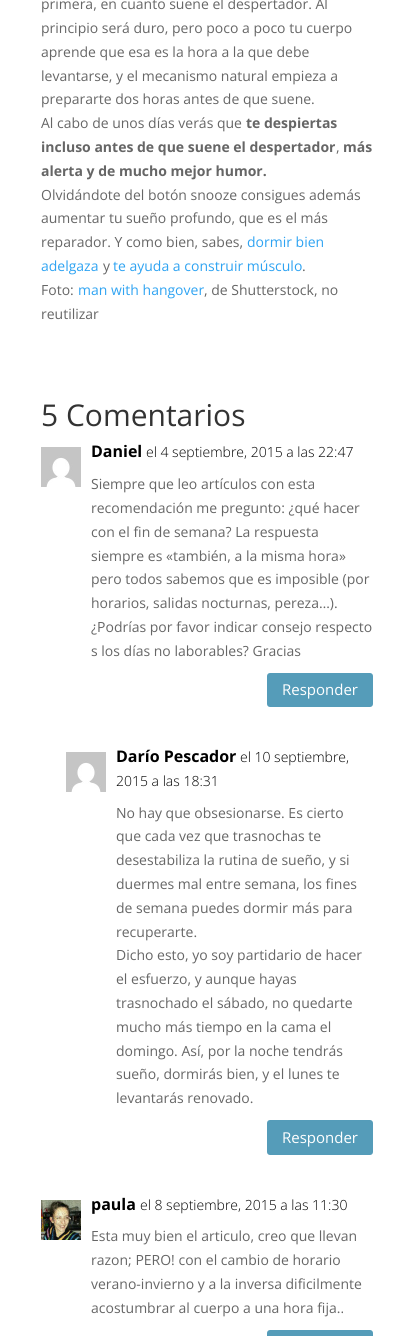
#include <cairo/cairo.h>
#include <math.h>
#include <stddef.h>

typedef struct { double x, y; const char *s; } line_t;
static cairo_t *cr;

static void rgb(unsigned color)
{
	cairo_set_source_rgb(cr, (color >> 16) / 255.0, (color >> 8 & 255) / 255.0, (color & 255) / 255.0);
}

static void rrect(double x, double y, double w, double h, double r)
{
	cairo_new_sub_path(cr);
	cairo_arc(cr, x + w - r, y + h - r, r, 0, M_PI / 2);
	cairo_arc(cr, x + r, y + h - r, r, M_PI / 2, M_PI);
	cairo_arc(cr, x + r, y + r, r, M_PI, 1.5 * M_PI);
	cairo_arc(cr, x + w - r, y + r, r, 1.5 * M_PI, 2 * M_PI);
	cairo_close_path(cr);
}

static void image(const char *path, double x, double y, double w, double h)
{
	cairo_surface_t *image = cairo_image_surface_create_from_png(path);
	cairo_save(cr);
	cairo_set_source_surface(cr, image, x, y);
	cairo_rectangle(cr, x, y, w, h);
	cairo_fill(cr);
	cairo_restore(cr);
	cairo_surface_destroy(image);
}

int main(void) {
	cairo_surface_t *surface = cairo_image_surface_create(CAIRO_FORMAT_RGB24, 414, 1336);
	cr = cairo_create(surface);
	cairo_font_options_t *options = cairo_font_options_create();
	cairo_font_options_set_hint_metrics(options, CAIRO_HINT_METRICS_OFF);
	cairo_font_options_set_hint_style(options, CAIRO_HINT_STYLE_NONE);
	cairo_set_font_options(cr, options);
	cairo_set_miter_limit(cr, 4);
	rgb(0xffffff);
	cairo_paint(cr);
	image("img/1.png", 41, 447, 40, 40);
	rgb(0x559cb9);
	rrect(267, 673, 106, 34, 3);
	cairo_fill(cr);
	image("img/1.png", 66, 752, 40, 40);
	rrect(267, 1120, 106, 35, 3);
	cairo_fill(cr);
	image("img/2.png", 41, 1200, 40, 40);
	rrect(267, 1330, 106, 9, 3);
	cairo_fill(cr);
	cairo_select_font_face(cr, "Open Sans", CAIRO_FONT_SLANT_NORMAL, CAIRO_FONT_WEIGHT_NORMAL);
	cairo_set_font_size(cr, 14);
	rgb(0x666666);
	{
		static const line_t items[] = {
			{41, 9, "primera, en cuanto suene el despertador. Al"},
			{41, 33, "principio será duro, pero poco a poco tu cuerpo"},
			{41, 57, "aprende que esa es la hora a la que debe"},
			{41, 81, "levantarse, y el mecanismo natural empieza a"},
			{41, 104, "prepararte dos horas antes de que suene."},
			{41, 128, "Al cabo de unos días verás que"},
		};
		for (size_t i = 0; i < sizeof items / sizeof *items; i++) {
			cairo_move_to(cr, items[i].x, items[i].y);
			cairo_show_text(cr, items[i].s);
		}
	}
	cairo_select_font_face(cr, "Open Sans", CAIRO_FONT_SLANT_NORMAL, CAIRO_FONT_WEIGHT_BOLD);
	cairo_move_to(cr, 246, 128);
	cairo_show_text(cr, "te despiertas");
	cairo_move_to(cr, 41, 152);
	cairo_show_text(cr, "incluso antes de que suene el despertador");
	cairo_select_font_face(cr, "Open Sans", CAIRO_FONT_SLANT_NORMAL, CAIRO_FONT_WEIGHT_NORMAL);
	cairo_move_to(cr, 336, 152);
	cairo_show_text(cr, ",");
	cairo_select_font_face(cr, "Open Sans", CAIRO_FONT_SLANT_NORMAL, CAIRO_FONT_WEIGHT_BOLD);
	cairo_move_to(cr, 343, 152);
	cairo_show_text(cr, "más");
	cairo_move_to(cr, 41, 176);
	cairo_show_text(cr, "alerta y de mucho mejor humor.");
	cairo_select_font_face(cr, "Open Sans", CAIRO_FONT_SLANT_NORMAL, CAIRO_FONT_WEIGHT_NORMAL);
	{
		static const line_t items[] = {
			{41, 200, "Olvidándote del botón snooze consigues además"},
			{41, 223, "aumentar tu sueño profundo, que es el más"},
			{41, 247, "reparador. Y como bien, sabes,"},
		};
		for (size_t i = 0; i < sizeof items / sizeof *items; i++) {
			cairo_move_to(cr, items[i].x, items[i].y);
			cairo_show_text(cr, items[i].s);
		}
	}
	rgb(0x2ea3f2);
	cairo_move_to(cr, 247, 247);
	cairo_show_text(cr, "dormir bien");
	cairo_move_to(cr, 41, 271);
	cairo_show_text(cr, "adelgaza");
	rgb(0x666666);
	cairo_move_to(cr, 103, 271);
	cairo_show_text(cr, "y");
	rgb(0x2ea3f2);
	cairo_move_to(cr, 113, 271);
	cairo_show_text(cr, "te ayuda a construir músculo");
	rgb(0x666666);
	cairo_move_to(cr, 302, 271);
	cairo_show_text(cr, ".");
	cairo_move_to(cr, 41, 295);
	cairo_show_text(cr, "Foto:");
	rgb(0x2ea3f2);
	cairo_move_to(cr, 78, 295);
	cairo_show_text(cr, "man with hangover");
	rgb(0x666666);
	cairo_move_to(cr, 204, 295);
	cairo_show_text(cr, ", de Shutterstock, no");
	cairo_move_to(cr, 41, 319);
	cairo_show_text(cr, "reutilizar");
	cairo_set_font_size(cr, 30);
	rgb(0x333333);
	cairo_move_to(cr, 41, 426);
	cairo_show_text(cr, "5 Comentarios");
	cairo_select_font_face(cr, "Open Sans", CAIRO_FONT_SLANT_NORMAL, CAIRO_FONT_WEIGHT_BOLD);
	cairo_set_font_size(cr, 16);
	rgb(0x000000);
	cairo_move_to(cr, 91, 457);
	cairo_show_text(cr, "Daniel");
	cairo_select_font_face(cr, "Open Sans Light", CAIRO_FONT_SLANT_NORMAL, CAIRO_FONT_WEIGHT_NORMAL);
	cairo_set_font_size(cr, 14);
	cairo_move_to(cr, 146, 457);
	cairo_show_text(cr, "el 4 septiembre, 2015 a las 22:47");
	cairo_select_font_face(cr, "Open Sans", CAIRO_FONT_SLANT_NORMAL, CAIRO_FONT_WEIGHT_NORMAL);
	rgb(0x666666);
	{
		static const line_t items[] = {
			{91, 489, "Siempre que leo artículos con esta"},
			{91, 513, "recomendación me pregunto: ¿qué hacer"},
			{91, 537, "con el fin de semana? La respuesta"},
			{91, 561, "siempre es «también, a la misma hora»"},
			{91, 584, "pero todos sabemos que es imposible (por"},
			{91, 608, "horarios, salidas nocturnas, pereza…)."},
			{91, 632, "¿Podrías por favor indicar consejo respecto"},
			{91, 656, "s los días no laborables? Gracias"},
		};
		for (size_t i = 0; i < sizeof items / sizeof *items; i++) {
			cairo_move_to(cr, items[i].x, items[i].y);
			cairo_show_text(cr, items[i].s);
		}
	}
	cairo_set_font_size(cr, 15);
	rgb(0xffffff);
	cairo_move_to(cr, 282, 695);
	cairo_show_text(cr, "Responder");
	cairo_select_font_face(cr, "Open Sans", CAIRO_FONT_SLANT_NORMAL, CAIRO_FONT_WEIGHT_BOLD);
	cairo_set_font_size(cr, 16);
	rgb(0x000000);
	cairo_move_to(cr, 116, 762);
	cairo_show_text(cr, "Darío Pescador");
	cairo_select_font_face(cr, "Open Sans Light", CAIRO_FONT_SLANT_NORMAL, CAIRO_FONT_WEIGHT_NORMAL);
	cairo_set_font_size(cr, 14);
	cairo_move_to(cr, 240, 762);
	cairo_show_text(cr, "el 10 septiembre,");
	cairo_move_to(cr, 116, 786);
	cairo_show_text(cr, "2015 a las 18:31");
	cairo_select_font_face(cr, "Open Sans", CAIRO_FONT_SLANT_NORMAL, CAIRO_FONT_WEIGHT_NORMAL);
	rgb(0x666666);
	{
		static const line_t items[] = {
			{116, 818, "No hay que obsesionarse. Es cierto"},
			{116, 841, "que cada vez que trasnochas te"},
			{116, 865, "desestabiliza la rutina de sueño, y si"},
			{116, 889, "duermes mal entre semana, los fines"},
			{116, 913, "de semana puedes dormir más para"},
			{116, 937, "recuperarte."},
			{116, 960, "Dicho esto, yo soy partidario de hacer"},
			{116, 984, "el esfuerzo, y aunque hayas"},
			{116, 1008, "trasnochado el sábado, no quedarte"},
			{116, 1032, "mucho más tiempo en la cama el"},
			{116, 1056, "domingo. Así, por la noche tendrás"},
			{116, 1079, "sueño, dormirás bien, y el lunes te"},
			{116, 1103, "levantarás renovado."},
		};
		for (size_t i = 0; i < sizeof items / sizeof *items; i++) {
			cairo_move_to(cr, items[i].x, items[i].y);
			cairo_show_text(cr, items[i].s);
		}
	}
	cairo_set_font_size(cr, 15);
	rgb(0xffffff);
	cairo_move_to(cr, 282, 1143);
	cairo_show_text(cr, "Responder");
	cairo_select_font_face(cr, "Open Sans", CAIRO_FONT_SLANT_NORMAL, CAIRO_FONT_WEIGHT_BOLD);
	cairo_set_font_size(cr, 16);
	rgb(0x000000);
	cairo_move_to(cr, 91, 1210);
	cairo_show_text(cr, "paula");
	cairo_select_font_face(cr, "Open Sans Light", CAIRO_FONT_SLANT_NORMAL, CAIRO_FONT_WEIGHT_NORMAL);
	cairo_set_font_size(cr, 14);
	cairo_move_to(cr, 140, 1210);
	cairo_show_text(cr, "el 8 septiembre, 2015 a las 11:30");
	cairo_select_font_face(cr, "Open Sans", CAIRO_FONT_SLANT_NORMAL, CAIRO_FONT_WEIGHT_NORMAL);
	rgb(0x666666);
	{
		static const line_t items[] = {
			{91, 1241, "Esta muy bien el articulo, creo que llevan"},
			{91, 1265, "razon; PERO! con el cambio de horario"},
			{91, 1289, "verano-invierno y a la inversa dificilmente"},
			{91, 1313, "acostumbrar al cuerpo a una hora fija.."},
		};
		for (size_t i = 0; i < sizeof items / sizeof *items; i++) {
			cairo_move_to(cr, items[i].x, items[i].y);
			cairo_show_text(cr, items[i].s);
		}
	}
	cairo_surface_write_to_png(surface, "page.png");
	cairo_font_options_destroy(options);
	cairo_destroy(cr);
	cairo_surface_destroy(surface);
	return 0;
}
